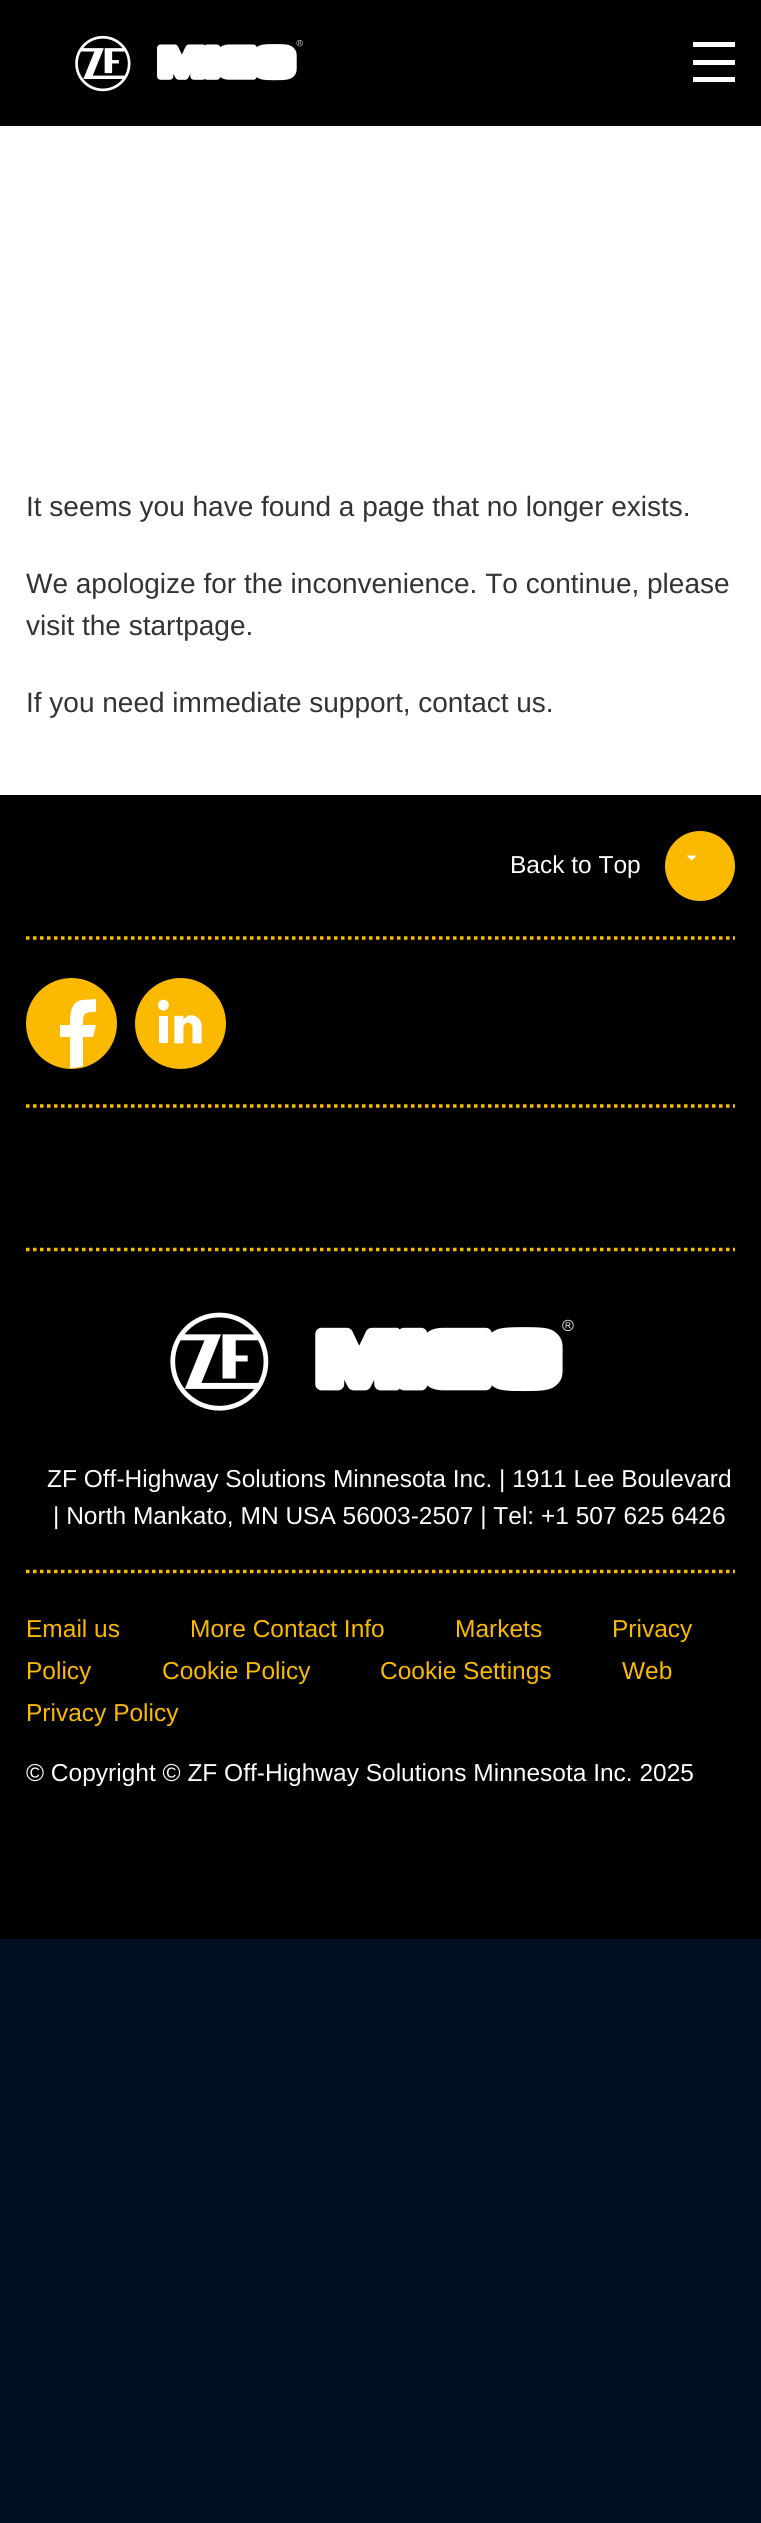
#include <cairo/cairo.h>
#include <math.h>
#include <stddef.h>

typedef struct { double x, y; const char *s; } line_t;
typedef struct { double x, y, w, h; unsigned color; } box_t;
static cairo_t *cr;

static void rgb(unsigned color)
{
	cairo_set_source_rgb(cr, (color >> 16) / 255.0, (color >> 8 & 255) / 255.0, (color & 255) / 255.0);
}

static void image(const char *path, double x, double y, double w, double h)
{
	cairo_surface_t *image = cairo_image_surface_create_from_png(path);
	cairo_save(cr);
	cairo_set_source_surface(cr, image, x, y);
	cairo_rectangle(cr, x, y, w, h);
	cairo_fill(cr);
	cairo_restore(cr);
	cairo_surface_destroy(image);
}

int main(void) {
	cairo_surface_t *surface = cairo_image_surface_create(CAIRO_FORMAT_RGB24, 761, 2523);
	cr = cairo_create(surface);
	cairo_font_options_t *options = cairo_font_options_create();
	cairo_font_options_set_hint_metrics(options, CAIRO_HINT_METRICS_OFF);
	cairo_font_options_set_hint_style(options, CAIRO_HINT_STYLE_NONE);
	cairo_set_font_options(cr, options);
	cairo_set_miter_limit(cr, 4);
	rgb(0x001024);
	cairo_paint(cr);
	rgb(0xffffff);
	cairo_rectangle(cr, 0, 126, 761, 669);
	cairo_fill(cr);
	rgb(0x000000);
	cairo_rectangle(cr, 0, 0, 761, 126);
	cairo_fill(cr);
	image("img/1.png", 75, 35, 228, 57);
	{
		static const box_t items[] = {
			{693, 42, 42, 5, 0xffffff},
			{693, 60, 42, 5, 0xffffff},
			{693, 77, 42, 5, 0xffffff},
			{0, 795, 761, 1144, 0x000000},
		};
		for (size_t i = 0; i < sizeof items / sizeof *items; i++) {
			rgb(items[i].color);
			cairo_rectangle(cr, items[i].x, items[i].y, items[i].w, items[i].h);
			cairo_fill(cr);
		}
	}
	rgb(0xfbba00);
	cairo_arc(cr, 700, 866, 35, 0, 2 * M_PI);
	cairo_fill(cr);
	cairo_save(cr);
	cairo_new_path(cr);
	cairo_move_to(cr, 683.5, 874.5);
	cairo_line_to(cr, 683.5, 855.5);
	cairo_line_to(cr, 716.5, 855.5);
	cairo_line_to(cr, 716.5, 874.5);
	cairo_close_path(cr);
	cairo_clip(cr);
	cairo_new_path(cr);
	cairo_move_to(cr, 750, 856.5);
	cairo_line_to(cr, 718.5, 825);
	cairo_line_to(cr, 687.5, 856.5);
	rgb(0xffffff);
	cairo_set_line_width(cr, 11.7);
	cairo_stroke(cr);
	cairo_restore(cr);
	cairo_new_path(cr);
	cairo_move_to(cr, 26, 938);
	cairo_line_to(cr, 735, 938);
	cairo_set_line_width(cr, 3.5);
	cairo_set_dash(cr, (double[]){3.5, 3.5}, 2, 0);
	cairo_stroke(cr);
	cairo_arc(cr, 71.5, 1023.5, 45.5, 0, 2 * M_PI);
	cairo_fill(cr);
	rgb(0xffffff);
	cairo_new_path(cr);
	cairo_move_to(cr, 93, 1037);
	cairo_line_to(cr, 96, 1025);
	cairo_line_to(cr, 83, 1025);
	cairo_curve_to(cr, 83, 1013, 84, 1012, 96, 1012);
	cairo_line_to(cr, 96, 999);
	cairo_line_to(cr, 82, 1000);
	cairo_curve_to(cr, 70, 1002, 70, 1015, 70, 1025);
	cairo_line_to(cr, 60, 1025);
	cairo_line_to(cr, 60, 1037);
	cairo_line_to(cr, 70, 1037);
	cairo_line_to(cr, 70, 1068);
	cairo_curve_to(cr, 75, 1068, 79, 1067, 83, 1066);
	cairo_line_to(cr, 83, 1037);
	cairo_close_path(cr);
	cairo_fill(cr);
	rgb(0xfbba00);
	cairo_arc(cr, 180.5, 1023.5, 45.5, 0, 2 * M_PI);
	cairo_fill(cr);
	image("img/2.png", 158, 999, 44, 45);
	cairo_new_path(cr);
	cairo_move_to(cr, 26, 1106);
	cairo_line_to(cr, 735, 1106);
	cairo_stroke(cr);
	cairo_new_path(cr);
	cairo_move_to(cr, 26, 1249.5);
	cairo_line_to(cr, 735, 1249.5);
	cairo_stroke(cr);
	image("img/3.png", 170, 1312, 404, 99);
	cairo_new_path(cr);
	cairo_move_to(cr, 26, 1571.5);
	cairo_line_to(cr, 735, 1571.5);
	cairo_stroke(cr);
	cairo_select_font_face(cr, "Liberation Sans", CAIRO_FONT_SLANT_NORMAL, CAIRO_FONT_WEIGHT_NORMAL);
	cairo_set_font_size(cr, 28);
	rgb(0x333333);
	{
		static const line_t items[] = {
			{26, 516, "It seems you have found a page that no longer exists."},
			{26, 593, "We apologize for the inconvenience. To continue, please"},
			{26, 635, "visit the startpage."},
			{26, 712, "If you need immediate support, contact us."},
		};
		for (size_t i = 0; i < sizeof items / sizeof *items; i++) {
			cairo_move_to(cr, items[i].x, items[i].y);
			cairo_show_text(cr, items[i].s);
		}
	}
	cairo_set_font_size(cr, 24.5);
	rgb(0xffffff);
	{
		static const line_t items[] = {
			{510, 873, "Back to Top"},
			{47, 1487, "ZF Off-Highway Solutions Minnesota Inc. | 1911 Lee Boulevard"},
			{53, 1524, "| North Mankato, MN USA 56003-2507 | Tel: +1 507 625 6426"},
		};
		for (size_t i = 0; i < sizeof items / sizeof *items; i++) {
			cairo_move_to(cr, items[i].x, items[i].y);
			cairo_show_text(cr, items[i].s);
		}
	}
	rgb(0xfbba00);
	{
		static const line_t items[] = {
			{26, 1637, "Email us"},
			{190, 1637, "More Contact Info"},
			{455, 1637, "Markets"},
			{612, 1637, "Privacy"},
			{26, 1679, "Policy"},
			{162, 1679, "Cookie Policy"},
			{380, 1679, "Cookie Settings"},
			{622, 1679, "Web"},
			{26, 1721, "Privacy Policy"},
		};
		for (size_t i = 0; i < sizeof items / sizeof *items; i++) {
			cairo_move_to(cr, items[i].x, items[i].y);
			cairo_show_text(cr, items[i].s);
		}
	}
	rgb(0xffffff);
	cairo_move_to(cr, 26, 1781);
	cairo_show_text(cr, "© Copyright © ZF Off-Highway Solutions Minnesota Inc. 2025");
	cairo_surface_write_to_png(surface, "page.png");
	cairo_font_options_destroy(options);
	cairo_destroy(cr);
	cairo_surface_destroy(surface);
	return 0;
}
